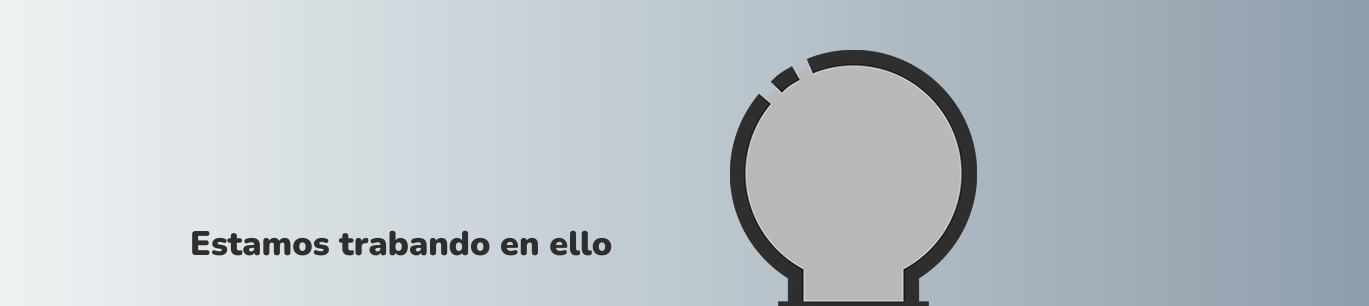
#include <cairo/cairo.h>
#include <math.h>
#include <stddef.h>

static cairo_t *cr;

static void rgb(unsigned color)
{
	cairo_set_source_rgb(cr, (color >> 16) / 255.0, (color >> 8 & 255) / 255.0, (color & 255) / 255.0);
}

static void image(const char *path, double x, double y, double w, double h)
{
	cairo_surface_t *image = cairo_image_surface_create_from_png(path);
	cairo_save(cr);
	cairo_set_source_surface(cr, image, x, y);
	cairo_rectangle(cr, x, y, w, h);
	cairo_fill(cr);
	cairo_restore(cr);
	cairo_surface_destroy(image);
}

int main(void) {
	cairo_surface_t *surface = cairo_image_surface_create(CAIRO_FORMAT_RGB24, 1369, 306);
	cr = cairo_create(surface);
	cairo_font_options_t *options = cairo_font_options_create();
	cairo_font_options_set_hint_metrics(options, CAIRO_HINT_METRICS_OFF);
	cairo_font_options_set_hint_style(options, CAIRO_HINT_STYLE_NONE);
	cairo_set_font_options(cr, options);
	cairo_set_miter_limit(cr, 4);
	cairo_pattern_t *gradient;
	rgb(0xffffff);
	cairo_paint(cr);
	gradient = cairo_pattern_create_linear(0, 153, 1369, 153);
	cairo_pattern_add_color_stop_rgba(gradient, 0, 0.933, 0.949, 0.953, 1);
	cairo_pattern_add_color_stop_rgba(gradient, 1, 0.557, 0.62, 0.671, 1);
	cairo_set_source(cr, gradient);
	cairo_pattern_destroy(gradient);
	cairo_rectangle(cr, 0, 0, 1369, 306);
	cairo_fill(cr);
	image("img/1.png", 730, 50, 247, 256);
	image("img/2.png", 730, 50, 247, 256);
	cairo_select_font_face(cr, "Nunito Black", CAIRO_FONT_SLANT_NORMAL, CAIRO_FONT_WEIGHT_NORMAL);
	cairo_set_font_size(cr, 34);
	rgb(0x2e2e2e);
	cairo_move_to(cr, 190, 255);
	cairo_show_text(cr, "Estamos trabando en ello");
	cairo_surface_write_to_png(surface, "page.png");
	cairo_font_options_destroy(options);
	cairo_destroy(cr);
	cairo_surface_destroy(surface);
	return 0;
}
